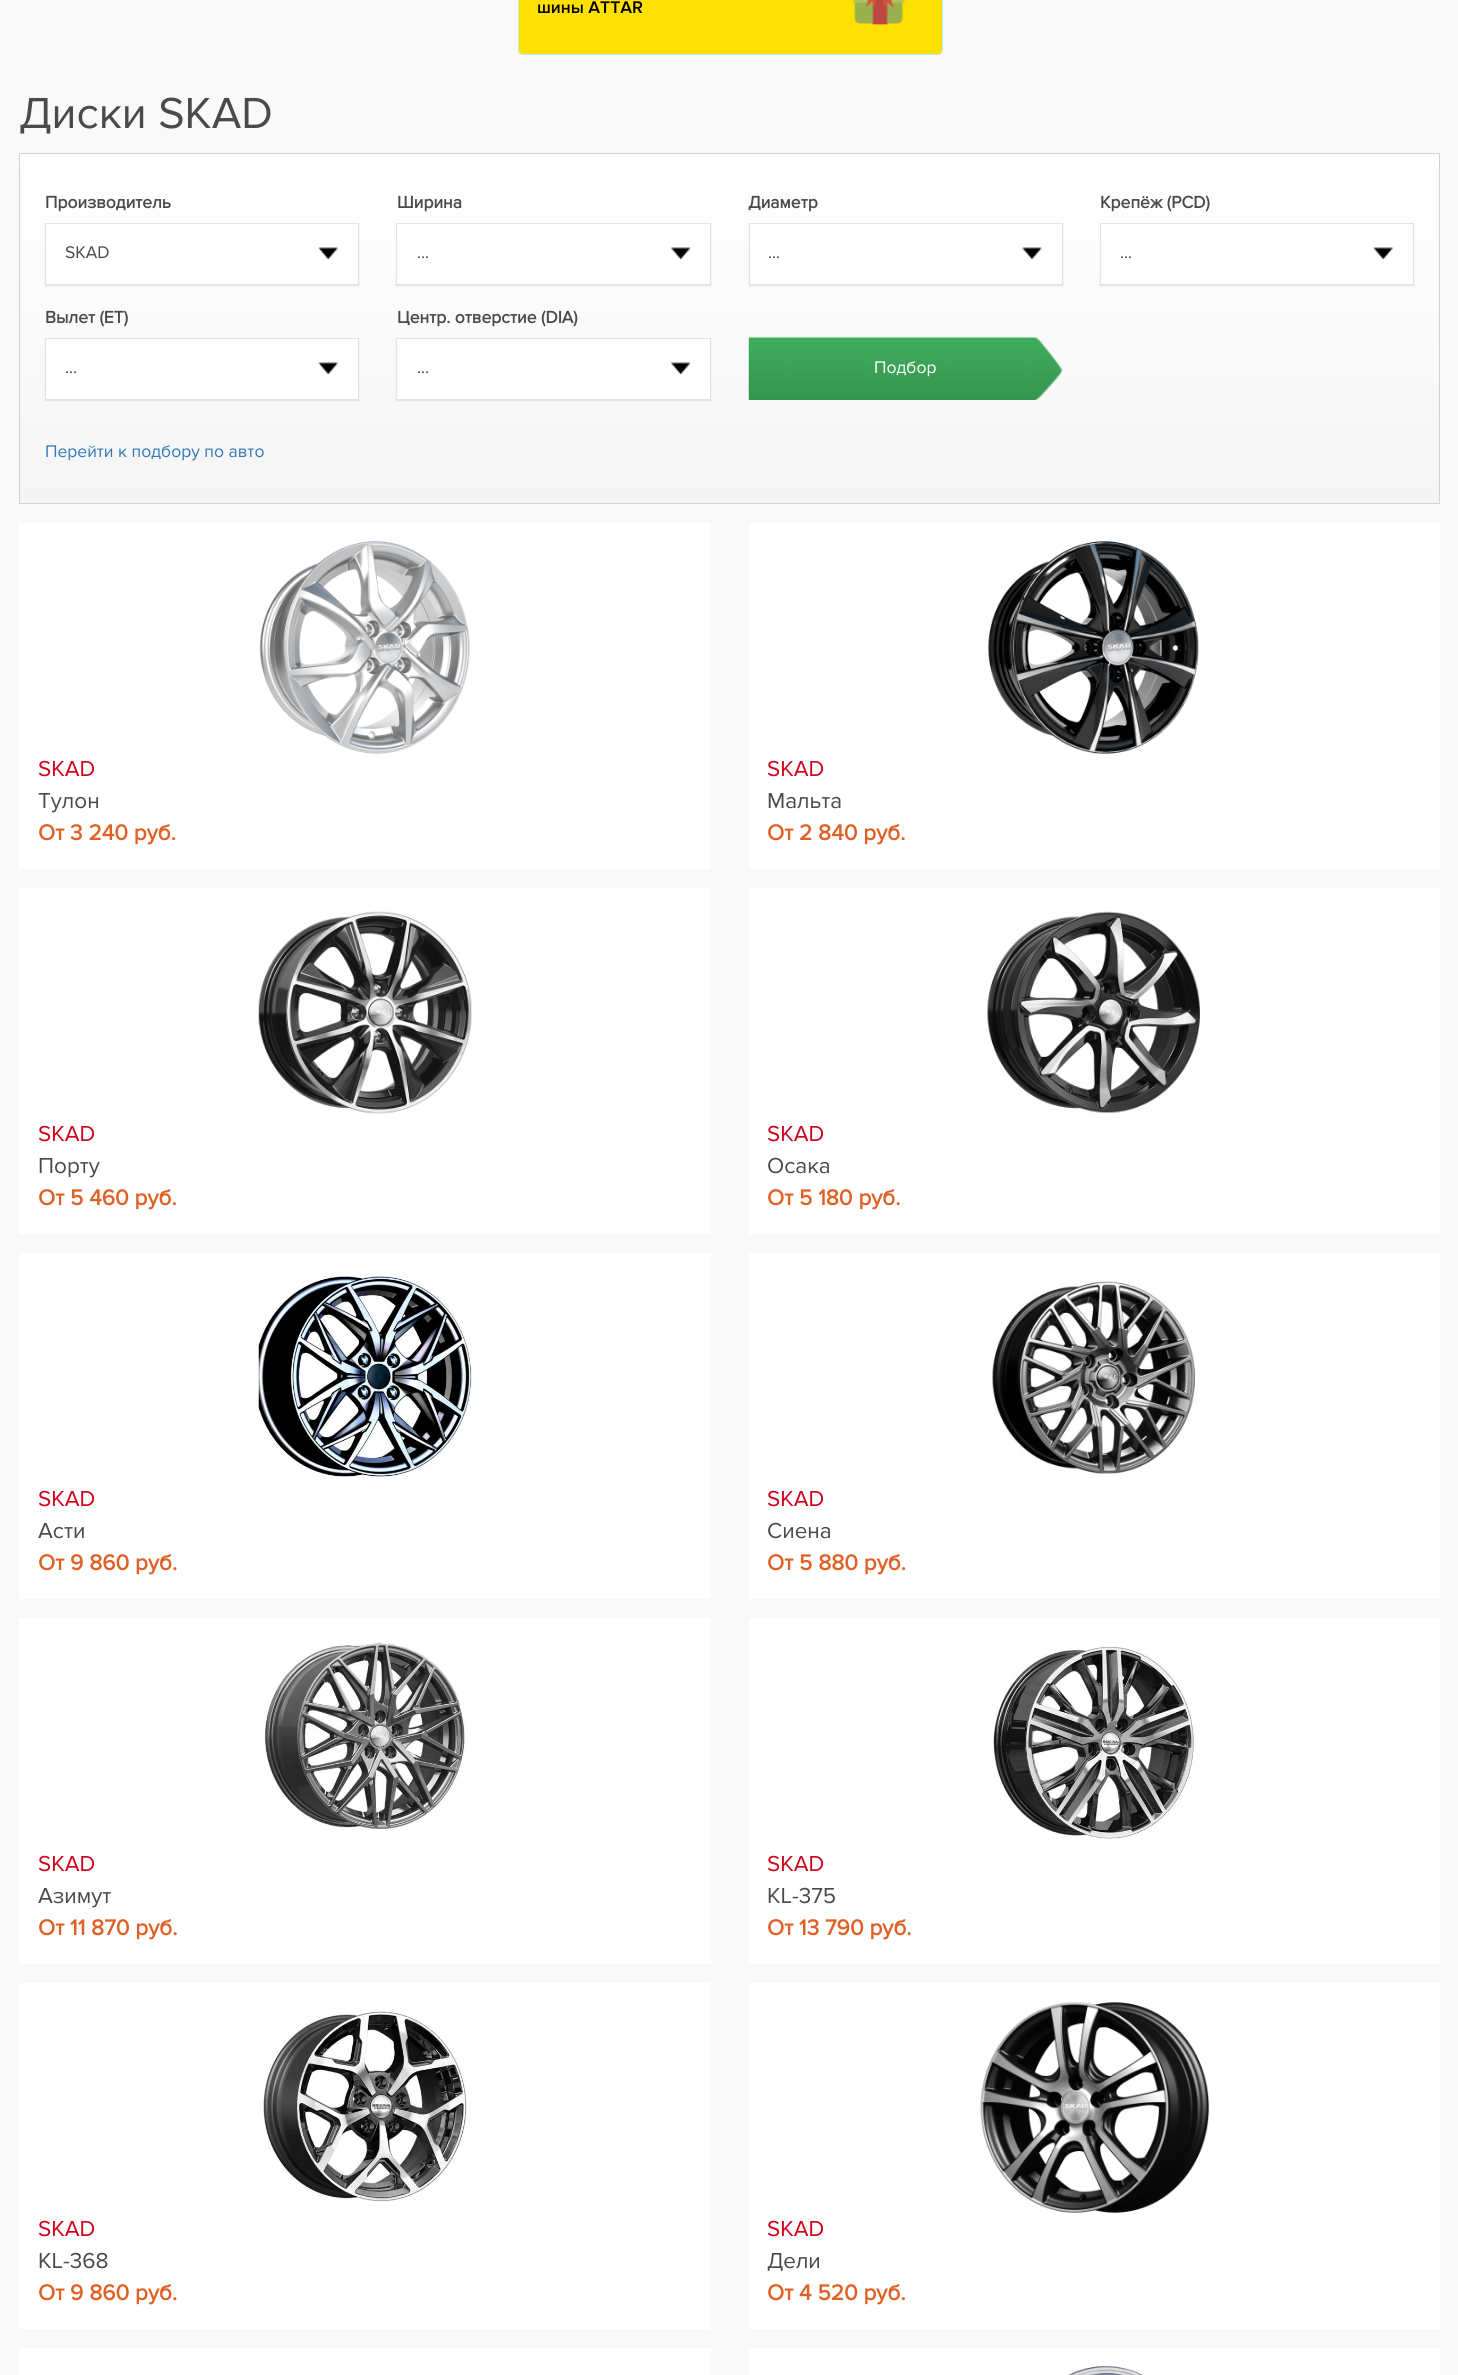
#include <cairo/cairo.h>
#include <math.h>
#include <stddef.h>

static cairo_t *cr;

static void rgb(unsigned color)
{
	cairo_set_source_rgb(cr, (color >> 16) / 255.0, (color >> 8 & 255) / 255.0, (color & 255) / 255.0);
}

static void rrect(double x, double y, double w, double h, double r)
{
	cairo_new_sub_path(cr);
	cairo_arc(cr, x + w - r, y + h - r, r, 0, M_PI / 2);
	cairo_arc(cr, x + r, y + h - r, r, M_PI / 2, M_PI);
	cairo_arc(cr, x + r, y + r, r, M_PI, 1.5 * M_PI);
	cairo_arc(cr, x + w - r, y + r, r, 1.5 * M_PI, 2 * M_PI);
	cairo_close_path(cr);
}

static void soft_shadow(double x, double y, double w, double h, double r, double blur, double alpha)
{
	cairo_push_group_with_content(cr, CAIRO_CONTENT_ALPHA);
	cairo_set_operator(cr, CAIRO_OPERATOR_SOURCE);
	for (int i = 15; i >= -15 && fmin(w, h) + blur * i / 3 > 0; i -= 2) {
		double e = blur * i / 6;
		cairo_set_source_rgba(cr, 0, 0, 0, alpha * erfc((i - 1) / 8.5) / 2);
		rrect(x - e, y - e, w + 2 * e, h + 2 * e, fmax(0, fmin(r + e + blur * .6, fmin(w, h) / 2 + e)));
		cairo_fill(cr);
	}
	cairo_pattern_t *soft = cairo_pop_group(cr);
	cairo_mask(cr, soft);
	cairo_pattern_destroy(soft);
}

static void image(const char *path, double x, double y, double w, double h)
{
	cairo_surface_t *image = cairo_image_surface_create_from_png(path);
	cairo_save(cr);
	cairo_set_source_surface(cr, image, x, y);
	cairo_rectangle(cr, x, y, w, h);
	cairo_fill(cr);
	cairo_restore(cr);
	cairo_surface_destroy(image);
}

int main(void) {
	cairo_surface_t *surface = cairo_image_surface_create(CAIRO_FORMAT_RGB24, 1458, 2375);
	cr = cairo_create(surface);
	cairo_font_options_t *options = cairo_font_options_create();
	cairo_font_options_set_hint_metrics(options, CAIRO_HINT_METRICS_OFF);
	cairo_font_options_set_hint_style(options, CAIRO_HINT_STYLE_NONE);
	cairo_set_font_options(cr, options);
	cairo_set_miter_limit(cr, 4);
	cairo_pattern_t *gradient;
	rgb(0xf9f9f9);
	cairo_paint(cr);
	rgb(0xffe002);
	rrect(518.5, -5.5, 424, 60, 4.5);
	cairo_fill_preserve(cr);
	rgb(0xbce8f1);
	cairo_set_line_width(cr, 1);
	cairo_stroke(cr);
	image("img/1.png", 852, 0, 53, 25);
	gradient = cairo_pattern_create_linear(729, 154, 729, 503);
	cairo_pattern_add_color_stop_rgba(gradient, 0, 1, 1, 1, 1);
	cairo_pattern_add_color_stop_rgba(gradient, 1, 0.961, 0.961, 0.961, 1);
	cairo_set_source(cr, gradient);
	cairo_pattern_destroy(gradient);
	cairo_rectangle(cr, 20, 154, 1419, 349);
	cairo_fill(cr);
	cairo_rectangle(cr, 19.5, 153.5, 1420, 350);
	rgb(0xd2d2d2);
	cairo_stroke(cr);
	rgb(0x000000);
	soft_shadow(45, 224, 314, 62, 0, 0.5, 0.1);
	rgb(0xffffff);
	cairo_rectangle(cr, 46, 224, 312, 60);
	cairo_fill(cr);
	image("img/2.png", 318, 247, 20, 13);
	cairo_rectangle(cr, 45.5, 223.5, 313, 61);
	rgb(0xe3e3e3);
	cairo_stroke(cr);
	rgb(0x000000);
	soft_shadow(396, 224, 315, 62, 0, 0.5, 0.1);
	rgb(0xffffff);
	cairo_rectangle(cr, 397, 224, 313, 60);
	cairo_fill(cr);
	image("img/3.png", 671, 247, 20, 13);
	cairo_rectangle(cr, 396.5, 223.5, 314, 61);
	rgb(0xe3e3e3);
	cairo_stroke(cr);
	rgb(0x000000);
	soft_shadow(749, 224, 314, 62, 0, 0.5, 0.1);
	rgb(0xffffff);
	cairo_rectangle(cr, 750, 224, 312, 60);
	cairo_fill(cr);
	image("img/4.png", 1022, 247, 20, 13);
	cairo_rectangle(cr, 749.5, 223.5, 313, 61);
	rgb(0xe3e3e3);
	cairo_stroke(cr);
	rgb(0x000000);
	soft_shadow(1100, 224, 314, 62, 0, 0.5, 0.1);
	rgb(0xffffff);
	cairo_rectangle(cr, 1101, 224, 312, 60);
	cairo_fill(cr);
	image("img/5.png", 1373, 247, 20, 13);
	cairo_rectangle(cr, 1100.5, 223.5, 313, 61);
	rgb(0xe3e3e3);
	cairo_stroke(cr);
	rgb(0x000000);
	soft_shadow(45, 339, 314, 62, 0, 0.5, 0.1);
	rgb(0xffffff);
	cairo_rectangle(cr, 46, 339, 312, 60);
	cairo_fill(cr);
	image("img/2.png", 318, 362, 20, 13);
	cairo_rectangle(cr, 45.5, 338.5, 313, 61);
	rgb(0xe3e3e3);
	cairo_stroke(cr);
	rgb(0x000000);
	soft_shadow(396, 339, 315, 62, 0, 0.5, 0.1);
	rgb(0xffffff);
	cairo_rectangle(cr, 397, 339, 313, 60);
	cairo_fill(cr);
	image("img/3.png", 671, 362, 20, 13);
	cairo_rectangle(cr, 396.5, 338.5, 314, 61);
	rgb(0xe3e3e3);
	cairo_stroke(cr);
	image("img/6.png", 748, 337, 315, 63);
	rgb(0xffffff);
	cairo_rectangle(cr, 19, 523, 692, 346);
	cairo_fill(cr);
	image("img/7.png", 259, 541, 211, 213);
	cairo_rectangle(cr, 749, 523, 691, 346);
	cairo_fill(cr);
	image("img/8.png", 988, 541, 211, 213);
	cairo_rectangle(cr, 19, 888, 692, 346);
	cairo_fill(cr);
	image("img/9.png", 258, 911, 214, 203);
	cairo_rectangle(cr, 749, 888, 691, 346);
	cairo_fill(cr);
	image("img/10.png", 987, 911, 213, 203);
	cairo_rectangle(cr, 19, 1253, 692, 346);
	cairo_fill(cr);
	image("img/11.png", 258, 1271, 214, 207);
	cairo_rectangle(cr, 749, 1253, 691, 346);
	cairo_fill(cr);
	image("img/12.png", 992, 1281, 203, 193);
	cairo_rectangle(cr, 19, 1618, 692, 346);
	cairo_fill(cr);
	image("img/13.png", 263, 1642, 203, 189);
	cairo_rectangle(cr, 749, 1618, 691, 346);
	cairo_fill(cr);
	image("img/14.png", 992, 1645, 204, 195);
	cairo_rectangle(cr, 19, 1983, 692, 346);
	cairo_fill(cr);
	image("img/15.png", 263, 2010, 204, 192);
	cairo_rectangle(cr, 749, 1983, 691, 346);
	cairo_fill(cr);
	image("img/16.png", 980, 2002, 230, 211);
	cairo_rectangle(cr, 19, 2348, 692, 27);
	cairo_fill(cr);
	cairo_rectangle(cr, 749, 2348, 691, 27);
	cairo_fill(cr);
	image("img/17.png", 1067, 2366, 77, 9);
	cairo_select_font_face(cr, "Proxima Nova SemiBold", CAIRO_FONT_SLANT_NORMAL, CAIRO_FONT_WEIGHT_NORMAL);
	cairo_set_font_size(cr, 17.5);
	rgb(0x000000);
	cairo_move_to(cr, 537, 13);
	cairo_show_text(cr, "шины ATTAR");
	cairo_select_font_face(cr, "Proxima Nova", CAIRO_FONT_SLANT_NORMAL, CAIRO_FONT_WEIGHT_NORMAL);
	cairo_set_font_size(cr, 45);
	rgb(0x4a4a4a);
	cairo_move_to(cr, 19, 128);
	cairo_show_text(cr, "Диски SKAD");
	cairo_select_font_face(cr, "Proxima Nova", CAIRO_FONT_SLANT_NORMAL, CAIRO_FONT_WEIGHT_BOLD);
	cairo_set_font_size(cr, 17.5);
	cairo_move_to(cr, 45, 208);
	cairo_show_text(cr, "Производитель");
	cairo_select_font_face(cr, "Proxima Nova", CAIRO_FONT_SLANT_NORMAL, CAIRO_FONT_WEIGHT_NORMAL);
	cairo_move_to(cr, 65, 258);
	cairo_show_text(cr, "SKAD");
	cairo_select_font_face(cr, "Proxima Nova", CAIRO_FONT_SLANT_NORMAL, CAIRO_FONT_WEIGHT_BOLD);
	cairo_move_to(cr, 397, 208);
	cairo_show_text(cr, "Ширина");
	cairo_select_font_face(cr, "Proxima Nova", CAIRO_FONT_SLANT_NORMAL, CAIRO_FONT_WEIGHT_NORMAL);
	cairo_move_to(cr, 417, 258);
	cairo_show_text(cr, "...");
	cairo_select_font_face(cr, "Proxima Nova", CAIRO_FONT_SLANT_NORMAL, CAIRO_FONT_WEIGHT_BOLD);
	cairo_move_to(cr, 748, 208);
	cairo_show_text(cr, "Диаметр");
	cairo_select_font_face(cr, "Proxima Nova", CAIRO_FONT_SLANT_NORMAL, CAIRO_FONT_WEIGHT_NORMAL);
	cairo_move_to(cr, 768, 258);
	cairo_show_text(cr, "...");
	cairo_select_font_face(cr, "Proxima Nova", CAIRO_FONT_SLANT_NORMAL, CAIRO_FONT_WEIGHT_BOLD);
	cairo_move_to(cr, 1100, 208);
	cairo_show_text(cr, "Крепёж (PCD)");
	cairo_select_font_face(cr, "Proxima Nova", CAIRO_FONT_SLANT_NORMAL, CAIRO_FONT_WEIGHT_NORMAL);
	cairo_move_to(cr, 1120, 258);
	cairo_show_text(cr, "...");
	cairo_select_font_face(cr, "Proxima Nova", CAIRO_FONT_SLANT_NORMAL, CAIRO_FONT_WEIGHT_BOLD);
	cairo_move_to(cr, 45, 323);
	cairo_show_text(cr, "Вылет (ET)");
	cairo_select_font_face(cr, "Proxima Nova", CAIRO_FONT_SLANT_NORMAL, CAIRO_FONT_WEIGHT_NORMAL);
	cairo_move_to(cr, 65, 373);
	cairo_show_text(cr, "...");
	cairo_select_font_face(cr, "Proxima Nova", CAIRO_FONT_SLANT_NORMAL, CAIRO_FONT_WEIGHT_BOLD);
	cairo_move_to(cr, 397, 323);
	cairo_show_text(cr, "Центр. отверстие (DIA)");
	cairo_select_font_face(cr, "Proxima Nova", CAIRO_FONT_SLANT_NORMAL, CAIRO_FONT_WEIGHT_NORMAL);
	cairo_move_to(cr, 417, 373);
	cairo_show_text(cr, "...");
	rgb(0xffffff);
	cairo_move_to(cr, 874, 373);
	cairo_show_text(cr, "Подбор");
	rgb(0x337ab7);
	cairo_move_to(cr, 45, 457);
	cairo_show_text(cr, "Перейти к подбору по авто");
	cairo_set_font_size(cr, 22.5);
	rgb(0xd0021b);
	cairo_move_to(cr, 38, 776);
	cairo_show_text(cr, "SKAD");
	rgb(0x4a4a4a);
	cairo_move_to(cr, 38, 808);
	cairo_show_text(cr, "Тулон");
	cairo_select_font_face(cr, "Proxima Nova", CAIRO_FONT_SLANT_NORMAL, CAIRO_FONT_WEIGHT_BOLD);
	rgb(0xe06125);
	cairo_move_to(cr, 38, 840);
	cairo_show_text(cr, "От 3 240 руб.");
	cairo_select_font_face(cr, "Proxima Nova", CAIRO_FONT_SLANT_NORMAL, CAIRO_FONT_WEIGHT_NORMAL);
	rgb(0xd0021b);
	cairo_move_to(cr, 767, 776);
	cairo_show_text(cr, "SKAD");
	rgb(0x4a4a4a);
	cairo_move_to(cr, 767, 808);
	cairo_show_text(cr, "Мальта");
	cairo_select_font_face(cr, "Proxima Nova", CAIRO_FONT_SLANT_NORMAL, CAIRO_FONT_WEIGHT_BOLD);
	rgb(0xe06125);
	cairo_move_to(cr, 767, 840);
	cairo_show_text(cr, "От 2 840 руб.");
	cairo_select_font_face(cr, "Proxima Nova", CAIRO_FONT_SLANT_NORMAL, CAIRO_FONT_WEIGHT_NORMAL);
	rgb(0xd0021b);
	cairo_move_to(cr, 38, 1141);
	cairo_show_text(cr, "SKAD");
	rgb(0x4a4a4a);
	cairo_move_to(cr, 38, 1173);
	cairo_show_text(cr, "Порту");
	cairo_select_font_face(cr, "Proxima Nova", CAIRO_FONT_SLANT_NORMAL, CAIRO_FONT_WEIGHT_BOLD);
	rgb(0xe06125);
	cairo_move_to(cr, 38, 1205);
	cairo_show_text(cr, "От 5 460 руб.");
	cairo_select_font_face(cr, "Proxima Nova", CAIRO_FONT_SLANT_NORMAL, CAIRO_FONT_WEIGHT_NORMAL);
	rgb(0xd0021b);
	cairo_move_to(cr, 767, 1141);
	cairo_show_text(cr, "SKAD");
	rgb(0x4a4a4a);
	cairo_move_to(cr, 767, 1173);
	cairo_show_text(cr, "Осака");
	cairo_select_font_face(cr, "Proxima Nova", CAIRO_FONT_SLANT_NORMAL, CAIRO_FONT_WEIGHT_BOLD);
	rgb(0xe06125);
	cairo_move_to(cr, 767, 1205);
	cairo_show_text(cr, "От 5 180 руб.");
	cairo_select_font_face(cr, "Proxima Nova", CAIRO_FONT_SLANT_NORMAL, CAIRO_FONT_WEIGHT_NORMAL);
	rgb(0xd0021b);
	cairo_move_to(cr, 38, 1506);
	cairo_show_text(cr, "SKAD");
	rgb(0x4a4a4a);
	cairo_move_to(cr, 38, 1538);
	cairo_show_text(cr, "Асти");
	cairo_select_font_face(cr, "Proxima Nova", CAIRO_FONT_SLANT_NORMAL, CAIRO_FONT_WEIGHT_BOLD);
	rgb(0xe06125);
	cairo_move_to(cr, 38, 1570);
	cairo_show_text(cr, "От 9 860 руб.");
	cairo_select_font_face(cr, "Proxima Nova", CAIRO_FONT_SLANT_NORMAL, CAIRO_FONT_WEIGHT_NORMAL);
	rgb(0xd0021b);
	cairo_move_to(cr, 767, 1506);
	cairo_show_text(cr, "SKAD");
	rgb(0x4a4a4a);
	cairo_move_to(cr, 767, 1538);
	cairo_show_text(cr, "Сиена");
	cairo_select_font_face(cr, "Proxima Nova", CAIRO_FONT_SLANT_NORMAL, CAIRO_FONT_WEIGHT_BOLD);
	rgb(0xe06125);
	cairo_move_to(cr, 767, 1570);
	cairo_show_text(cr, "От 5 880 руб.");
	cairo_select_font_face(cr, "Proxima Nova", CAIRO_FONT_SLANT_NORMAL, CAIRO_FONT_WEIGHT_NORMAL);
	rgb(0xd0021b);
	cairo_move_to(cr, 38, 1871);
	cairo_show_text(cr, "SKAD");
	rgb(0x4a4a4a);
	cairo_move_to(cr, 38, 1903);
	cairo_show_text(cr, "Азимут");
	cairo_select_font_face(cr, "Proxima Nova", CAIRO_FONT_SLANT_NORMAL, CAIRO_FONT_WEIGHT_BOLD);
	rgb(0xe06125);
	cairo_move_to(cr, 38, 1935);
	cairo_show_text(cr, "От 11 870 руб.");
	cairo_select_font_face(cr, "Proxima Nova", CAIRO_FONT_SLANT_NORMAL, CAIRO_FONT_WEIGHT_NORMAL);
	rgb(0xd0021b);
	cairo_move_to(cr, 767, 1871);
	cairo_show_text(cr, "SKAD");
	rgb(0x4a4a4a);
	cairo_move_to(cr, 767, 1903);
	cairo_show_text(cr, "KL-375");
	cairo_select_font_face(cr, "Proxima Nova", CAIRO_FONT_SLANT_NORMAL, CAIRO_FONT_WEIGHT_BOLD);
	rgb(0xe06125);
	cairo_move_to(cr, 767, 1935);
	cairo_show_text(cr, "От 13 790 руб.");
	cairo_select_font_face(cr, "Proxima Nova", CAIRO_FONT_SLANT_NORMAL, CAIRO_FONT_WEIGHT_NORMAL);
	rgb(0xd0021b);
	cairo_move_to(cr, 38, 2236);
	cairo_show_text(cr, "SKAD");
	rgb(0x4a4a4a);
	cairo_move_to(cr, 38, 2268);
	cairo_show_text(cr, "KL-368");
	cairo_select_font_face(cr, "Proxima Nova", CAIRO_FONT_SLANT_NORMAL, CAIRO_FONT_WEIGHT_BOLD);
	rgb(0xe06125);
	cairo_move_to(cr, 38, 2300);
	cairo_show_text(cr, "От 9 860 руб.");
	cairo_select_font_face(cr, "Proxima Nova", CAIRO_FONT_SLANT_NORMAL, CAIRO_FONT_WEIGHT_NORMAL);
	rgb(0xd0021b);
	cairo_move_to(cr, 767, 2236);
	cairo_show_text(cr, "SKAD");
	rgb(0x4a4a4a);
	cairo_move_to(cr, 767, 2268);
	cairo_show_text(cr, "Дели");
	cairo_select_font_face(cr, "Proxima Nova", CAIRO_FONT_SLANT_NORMAL, CAIRO_FONT_WEIGHT_BOLD);
	rgb(0xe06125);
	cairo_move_to(cr, 767, 2300);
	cairo_show_text(cr, "От 4 520 руб.");
	cairo_surface_write_to_png(surface, "page.png");
	cairo_font_options_destroy(options);
	cairo_destroy(cr);
	cairo_surface_destroy(surface);
	return 0;
}
